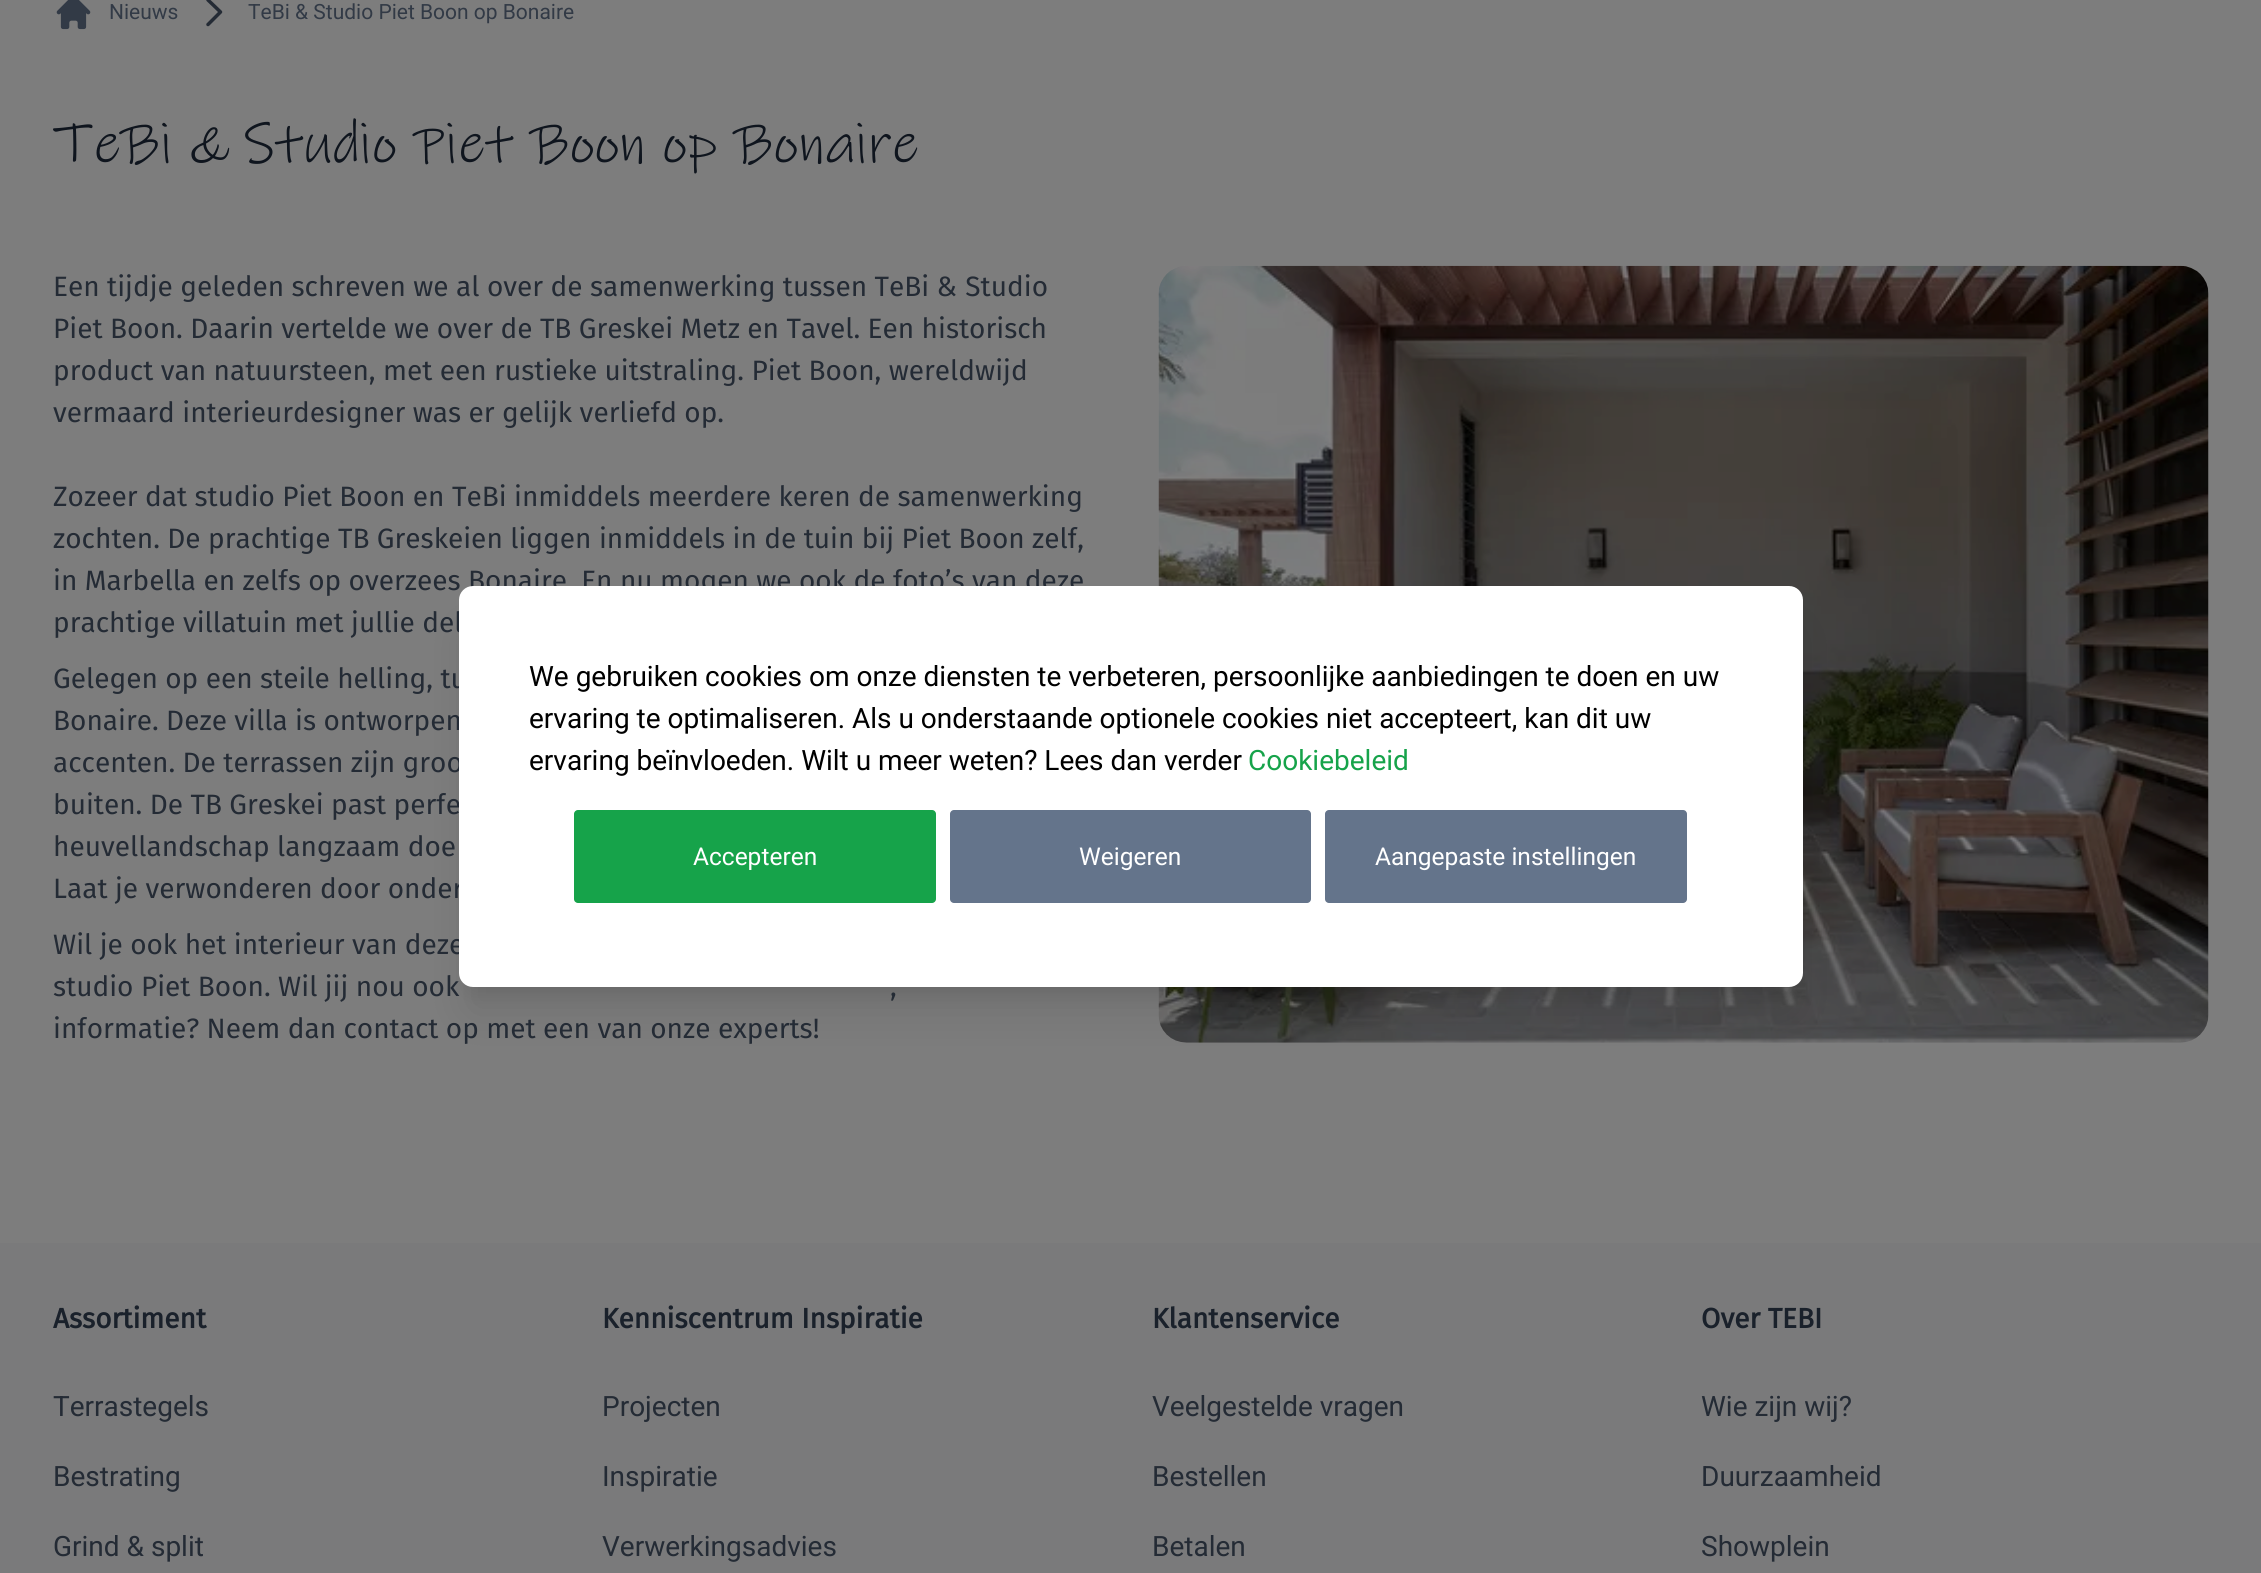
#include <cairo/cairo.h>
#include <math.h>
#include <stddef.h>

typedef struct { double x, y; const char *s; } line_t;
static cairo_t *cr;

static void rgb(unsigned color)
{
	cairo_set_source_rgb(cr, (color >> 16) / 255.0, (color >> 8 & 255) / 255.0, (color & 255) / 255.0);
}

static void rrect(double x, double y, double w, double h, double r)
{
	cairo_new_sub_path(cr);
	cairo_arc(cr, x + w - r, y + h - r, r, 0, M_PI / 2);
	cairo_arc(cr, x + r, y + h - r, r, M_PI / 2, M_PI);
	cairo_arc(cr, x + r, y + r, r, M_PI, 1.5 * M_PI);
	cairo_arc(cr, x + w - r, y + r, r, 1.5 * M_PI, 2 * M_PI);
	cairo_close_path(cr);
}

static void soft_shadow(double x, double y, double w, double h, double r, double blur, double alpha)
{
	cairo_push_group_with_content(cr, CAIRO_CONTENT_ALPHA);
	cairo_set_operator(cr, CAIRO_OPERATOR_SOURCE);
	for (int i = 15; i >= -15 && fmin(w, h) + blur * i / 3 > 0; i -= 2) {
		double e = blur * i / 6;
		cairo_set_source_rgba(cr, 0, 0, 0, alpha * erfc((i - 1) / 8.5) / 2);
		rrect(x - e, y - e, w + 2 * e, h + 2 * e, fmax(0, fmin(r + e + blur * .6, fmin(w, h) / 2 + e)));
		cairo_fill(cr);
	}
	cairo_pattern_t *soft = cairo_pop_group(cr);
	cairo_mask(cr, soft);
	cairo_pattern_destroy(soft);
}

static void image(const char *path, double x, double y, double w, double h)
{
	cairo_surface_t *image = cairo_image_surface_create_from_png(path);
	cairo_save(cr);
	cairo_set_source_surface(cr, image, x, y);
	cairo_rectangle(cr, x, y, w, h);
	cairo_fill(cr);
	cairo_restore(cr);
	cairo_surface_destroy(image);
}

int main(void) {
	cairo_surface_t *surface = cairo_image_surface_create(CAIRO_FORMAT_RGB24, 2261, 1573);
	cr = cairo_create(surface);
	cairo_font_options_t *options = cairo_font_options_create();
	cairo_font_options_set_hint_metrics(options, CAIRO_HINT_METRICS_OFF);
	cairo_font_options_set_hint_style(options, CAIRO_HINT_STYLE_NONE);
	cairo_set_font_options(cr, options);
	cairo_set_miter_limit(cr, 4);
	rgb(0x7d7d7d);
	cairo_paint(cr);
	image("img/1.png", 56, 0, 35, 30);
	cairo_new_path(cr);
	cairo_move_to(cr, 208, 0);
	cairo_line_to(cr, 220.5, 12);
	cairo_line_to(cr, 208, 24.5);
	rgb(0x242b35);
	cairo_set_line_width(cr, 3.5);
	cairo_set_line_cap(cr, CAIRO_LINE_CAP_ROUND);
	cairo_set_line_join(cr, CAIRO_LINE_JOIN_ROUND);
	cairo_stroke(cr);
	image("img/2.png", 1158, 265, 1051, 778);
	rgb(0x000000);
	soft_shadow(469, 611, 1323, 380, 4, 9, 0.1);
	soft_shadow(467, 630, 1327, 383, 5, 22, 0.1);
	rgb(0x7a7a7b);
	cairo_rectangle(cr, 0, 1243, 2261, 330);
	cairo_fill(cr);
	cairo_select_font_face(cr, "Roboto", CAIRO_FONT_SLANT_NORMAL, CAIRO_FONT_WEIGHT_NORMAL);
	cairo_set_font_size(cr, 21);
	rgb(0x323a46);
	cairo_move_to(cr, 109, 19);
	cairo_show_text(cr, "Nieuws");
	cairo_move_to(cr, 248, 19);
	cairo_show_text(cr, "TeBi & Studio Piet Boon op Bonaire");
	cairo_select_font_face(cr, "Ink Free", CAIRO_FONT_SLANT_NORMAL, CAIRO_FONT_WEIGHT_NORMAL);
	cairo_set_font_size(cr, 57.75);
	rgb(0x0f151e);
	cairo_move_to(cr, 53, 162);
	cairo_show_text(cr, "TeBi & Studio Piet Boon op Bonaire");
	cairo_select_font_face(cr, "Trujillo", CAIRO_FONT_SLANT_NORMAL, CAIRO_FONT_WEIGHT_NORMAL);
	cairo_set_font_size(cr, 28);
	rgb(0x242b35);
	{
		static const line_t items[] = {
			{53, 296, "Een tijdje geleden schreven we al over de samenwerking tussen TeBi & Studio"},
			{53, 338, "Piet Boon. Daarin vertelde we over de TB Greskei Metz en Tavel. Een historisch"},
			{53, 380, "product van natuursteen, met een rustieke uitstraling. Piet Boon, wereldwijd"},
			{53, 422, "vermaard interieurdesigner was er gelijk verliefd op."},
			{53, 506, "Zozeer dat studio Piet Boon en TeBi inmiddels meerdere keren de samenwerking"},
			{53, 548, "zochten. De prachtige TB Greskeien liggen inmiddels in de tuin bij Piet Boon zelf,"},
			{53, 590, "in Marbella en zelfs op overzees Bonaire. En nu mogen we ook de foto’s van deze"},
			{53, 632, "prachtige villatuin met jullie del"},
			{53, 688, "Gelegen op een steile helling, tu"},
			{53, 730, "Bonaire. Deze villa is ontworpen"},
			{53, 772, "accenten. De terrassen zijn groo"},
			{53, 814, "buiten. De TB Greskei past perfe"},
			{53, 856, "heuvellandschap langzaam doe"},
			{53, 898, "Laat je verwonderen door onder"},
			{53, 954, "Wil je ook het interieur van deze"},
			{53, 996, "studio Piet Boon. Wil jij nou ook"},
			{890, 996, ","},
			{53, 1038, "informatie? Neem dan contact op met een van onze experts!"},
		};
		for (size_t i = 0; i < sizeof items / sizeof *items; i++) {
			cairo_move_to(cr, items[i].x, items[i].y);
			cairo_show_text(cr, items[i].s);
		}
	}
	rgb(0xffffff);
	rrect(459, 586, 1344, 401, 14);
	cairo_fill(cr);
	cairo_select_font_face(cr, "Roboto", CAIRO_FONT_SLANT_NORMAL, CAIRO_FONT_WEIGHT_NORMAL);
	rgb(0x000000);
	{
		static const line_t items[] = {
			{529, 686, "We gebruiken cookies om onze diensten te verbeteren, persoonlijke aanbiedingen te doen en uw"},
			{529, 728, "ervaring te optimaliseren. Als u onderstaande optionele cookies niet accepteert, kan dit uw"},
			{529, 770, "ervaring beïnvloeden. Wilt u meer weten? Lees dan verder"},
		};
		for (size_t i = 0; i < sizeof items / sizeof *items; i++) {
			cairo_move_to(cr, items[i].x, items[i].y);
			cairo_show_text(cr, items[i].s);
		}
	}
	rgb(0x16a34a);
	cairo_move_to(cr, 1248, 770);
	cairo_show_text(cr, "Cookiebeleid");
	rrect(574, 810, 362, 93, 4);
	cairo_fill(cr);
	cairo_set_font_size(cr, 24.5);
	rgb(0xffffff);
	cairo_move_to(cr, 693, 865);
	cairo_show_text(cr, "Accepteren");
	rgb(0x64748b);
	rrect(950, 810, 361, 93, 4);
	cairo_fill(cr);
	rgb(0xffffff);
	cairo_move_to(cr, 1079, 865);
	cairo_show_text(cr, "Weigeren");
	rgb(0x64748b);
	rrect(1325, 810, 362, 93, 4);
	cairo_fill(cr);
	rgb(0xffffff);
	cairo_move_to(cr, 1375, 865);
	cairo_show_text(cr, "Aangepaste instellingen");
	cairo_select_font_face(cr, "Trujillo", CAIRO_FONT_SLANT_NORMAL, CAIRO_FONT_WEIGHT_BOLD);
	cairo_set_font_size(cr, 28);
	rgb(0x1a212b);
	cairo_move_to(cr, 53, 1328);
	cairo_show_text(cr, "Assortiment");
	cairo_select_font_face(cr, "Roboto", CAIRO_FONT_SLANT_NORMAL, CAIRO_FONT_WEIGHT_NORMAL);
	rgb(0x242b35);
	{
		static const line_t items[] = {
			{53, 1416, "Terrastegels"},
			{53, 1486, "Bestrating"},
			{53, 1556, "Grind & split"},
		};
		for (size_t i = 0; i < sizeof items / sizeof *items; i++) {
			cairo_move_to(cr, items[i].x, items[i].y);
			cairo_show_text(cr, items[i].s);
		}
	}
	cairo_select_font_face(cr, "Trujillo", CAIRO_FONT_SLANT_NORMAL, CAIRO_FONT_WEIGHT_BOLD);
	rgb(0x1a212b);
	cairo_move_to(cr, 602, 1328);
	cairo_show_text(cr, "Kenniscentrum Inspiratie");
	cairo_select_font_face(cr, "Roboto", CAIRO_FONT_SLANT_NORMAL, CAIRO_FONT_WEIGHT_NORMAL);
	rgb(0x242b35);
	{
		static const line_t items[] = {
			{602, 1416, "Projecten"},
			{602, 1486, "Inspiratie"},
			{602, 1556, "Verwerkingsadvies"},
		};
		for (size_t i = 0; i < sizeof items / sizeof *items; i++) {
			cairo_move_to(cr, items[i].x, items[i].y);
			cairo_show_text(cr, items[i].s);
		}
	}
	cairo_select_font_face(cr, "Trujillo", CAIRO_FONT_SLANT_NORMAL, CAIRO_FONT_WEIGHT_BOLD);
	rgb(0x1a212b);
	cairo_move_to(cr, 1152, 1328);
	cairo_show_text(cr, "Klantenservice");
	cairo_select_font_face(cr, "Roboto", CAIRO_FONT_SLANT_NORMAL, CAIRO_FONT_WEIGHT_NORMAL);
	rgb(0x242b35);
	{
		static const line_t items[] = {
			{1152, 1416, "Veelgestelde vragen"},
			{1152, 1486, "Bestellen"},
			{1152, 1556, "Betalen"},
		};
		for (size_t i = 0; i < sizeof items / sizeof *items; i++) {
			cairo_move_to(cr, items[i].x, items[i].y);
			cairo_show_text(cr, items[i].s);
		}
	}
	cairo_select_font_face(cr, "Trujillo", CAIRO_FONT_SLANT_NORMAL, CAIRO_FONT_WEIGHT_BOLD);
	rgb(0x1a212b);
	cairo_move_to(cr, 1701, 1328);
	cairo_show_text(cr, "Over TEBI");
	cairo_select_font_face(cr, "Roboto", CAIRO_FONT_SLANT_NORMAL, CAIRO_FONT_WEIGHT_NORMAL);
	rgb(0x242b35);
	{
		static const line_t items[] = {
			{1701, 1416, "Wie zijn wij?"},
			{1701, 1486, "Duurzaamheid"},
			{1701, 1556, "Showplein"},
		};
		for (size_t i = 0; i < sizeof items / sizeof *items; i++) {
			cairo_move_to(cr, items[i].x, items[i].y);
			cairo_show_text(cr, items[i].s);
		}
	}
	cairo_surface_write_to_png(surface, "page.png");
	cairo_font_options_destroy(options);
	cairo_destroy(cr);
	cairo_surface_destroy(surface);
	return 0;
}
